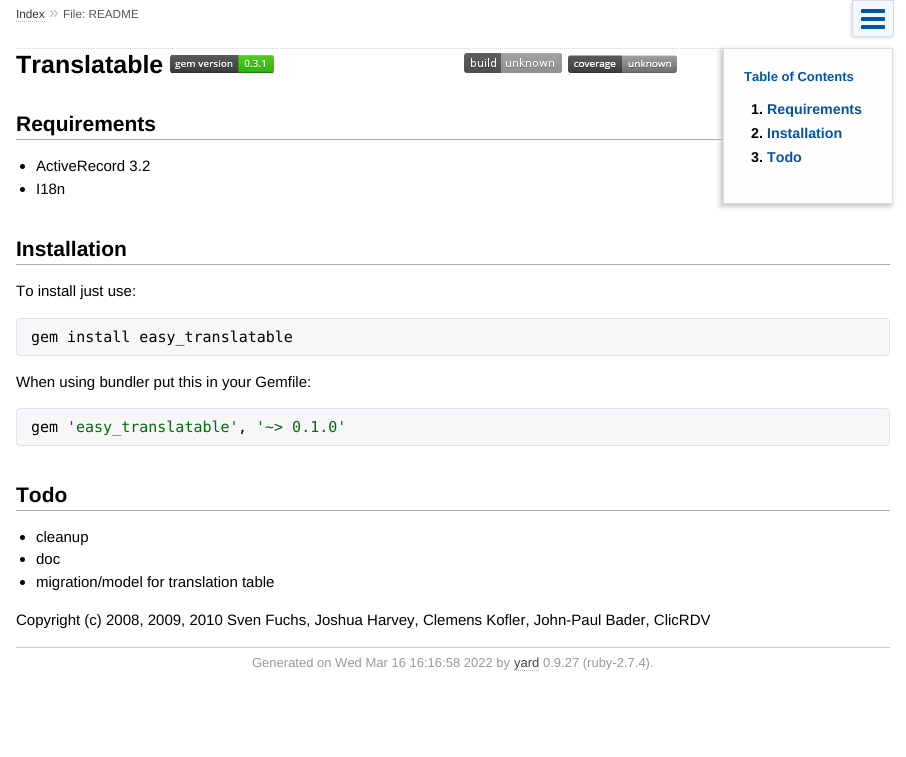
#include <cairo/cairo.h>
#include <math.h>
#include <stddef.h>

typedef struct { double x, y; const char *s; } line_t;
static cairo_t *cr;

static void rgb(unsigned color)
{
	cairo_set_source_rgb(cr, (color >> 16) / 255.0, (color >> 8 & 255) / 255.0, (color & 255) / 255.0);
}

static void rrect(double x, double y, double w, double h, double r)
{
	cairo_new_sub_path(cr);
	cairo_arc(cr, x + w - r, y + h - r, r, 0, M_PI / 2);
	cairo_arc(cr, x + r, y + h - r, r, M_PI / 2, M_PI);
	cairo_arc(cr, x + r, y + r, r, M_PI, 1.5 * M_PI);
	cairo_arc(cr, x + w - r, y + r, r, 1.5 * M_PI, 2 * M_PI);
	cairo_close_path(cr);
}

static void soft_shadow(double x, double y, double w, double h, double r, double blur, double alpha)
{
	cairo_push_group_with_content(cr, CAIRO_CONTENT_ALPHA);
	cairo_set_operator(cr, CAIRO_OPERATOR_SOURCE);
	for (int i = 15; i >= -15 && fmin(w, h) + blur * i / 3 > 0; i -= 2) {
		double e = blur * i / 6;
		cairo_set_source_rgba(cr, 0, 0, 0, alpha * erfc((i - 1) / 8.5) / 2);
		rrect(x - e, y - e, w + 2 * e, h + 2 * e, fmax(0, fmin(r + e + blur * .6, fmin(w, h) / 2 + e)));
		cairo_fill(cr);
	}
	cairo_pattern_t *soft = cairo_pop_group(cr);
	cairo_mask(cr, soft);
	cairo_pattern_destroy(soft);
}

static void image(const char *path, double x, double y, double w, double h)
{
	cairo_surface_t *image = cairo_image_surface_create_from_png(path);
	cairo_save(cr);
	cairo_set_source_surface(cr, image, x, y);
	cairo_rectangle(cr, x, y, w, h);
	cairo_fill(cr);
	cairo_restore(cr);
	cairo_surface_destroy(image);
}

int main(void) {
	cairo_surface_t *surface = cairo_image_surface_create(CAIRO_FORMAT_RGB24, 906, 757);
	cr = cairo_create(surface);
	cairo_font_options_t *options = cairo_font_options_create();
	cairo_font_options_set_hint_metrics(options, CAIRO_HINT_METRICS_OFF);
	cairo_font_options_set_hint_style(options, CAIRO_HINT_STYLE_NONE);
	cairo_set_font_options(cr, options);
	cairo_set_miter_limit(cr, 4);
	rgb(0xffffff);
	cairo_paint(cr);
	cairo_new_path(cr);
	cairo_move_to(cr, 16, 21.5);
	cairo_line_to(cr, 45, 21.5);
	rgb(0xbbbbdd);
	cairo_set_line_width(cr, 1);
	cairo_set_dash(cr, (double[]){1, 1}, 2, 0);
	cairo_stroke(cr);
	rgb(0xdddddd);
	soft_shadow(851, 1, 42, 37, 3, 1.5, 1);
	rgb(0xf1f8ff);
	cairo_new_path(cr);
	cairo_move_to(cr, 852.5, 0.5);
	cairo_line_to(cr, 893.5, 0.5);
	cairo_line_to(cr, 893.5, 34);
	cairo_curve_to(cr, 893.5, 35.5, 892.5, 36.5, 891, 36.5);
	cairo_line_to(cr, 855, 36.5);
	cairo_curve_to(cr, 853.5, 36.5, 852.5, 35.5, 852.5, 34);
	cairo_close_path(cr);
	cairo_fill_preserve(cr);
	rgb(0xd8d8e5);
	cairo_set_dash(cr, NULL, 0, 0);
	cairo_stroke(cr);
	rgb(0x0055aa);
	rrect(861, 9, 24, 4, 1);
	cairo_fill(cr);
	rrect(861, 17, 24, 4, 1);
	cairo_fill(cr);
	rrect(861, 25, 24, 4, 1);
	cairo_fill(cr);
	cairo_new_path(cr);
	cairo_move_to(cr, 16, 48.5);
	cairo_line_to(cr, 890, 48.5);
	rgb(0xd5d5d5);
	cairo_set_dash(cr, (double[]){1, 1}, 2, 0);
	cairo_stroke(cr);
	image("img/1.png", 170, 55, 104, 18);
	image("img/2.png", 464, 53, 98, 20);
	image("img/3.png", 568, 55, 109, 18);
	rgb(0xaaaaaa);
	cairo_rectangle(cr, 16, 139, 707, 1);
	cairo_fill(cr);
	rgb(0x000000);
	cairo_arc(cr, 22.5, 166.5, 2.5, 0, 2 * M_PI);
	cairo_fill(cr);
	cairo_arc(cr, 22.5, 189.5, 2.5, 0, 2 * M_PI);
	cairo_fill(cr);
	rgb(0xaaaaaa);
	cairo_rectangle(cr, 16, 264, 874, 1);
	cairo_fill(cr);
	rgb(0xf7f7f9);
	rrect(16.5, 318.5, 873, 37, 3.5);
	cairo_fill_preserve(cr);
	rgb(0xe1e1e8);
	cairo_set_dash(cr, NULL, 0, 0);
	cairo_stroke(cr);
	rgb(0xf7f7f9);
	rrect(16.5, 408.5, 873, 37, 3.5);
	cairo_fill_preserve(cr);
	rgb(0xe1e1e8);
	cairo_stroke(cr);
	rgb(0xaaaaaa);
	cairo_rectangle(cr, 16, 510, 874, 1);
	cairo_fill(cr);
	rgb(0x000000);
	cairo_arc(cr, 22.5, 537.5, 2.5, 0, 2 * M_PI);
	cairo_fill(cr);
	cairo_arc(cr, 22.5, 559.5, 2.5, 0, 2 * M_PI);
	cairo_fill(cr);
	cairo_arc(cr, 22.5, 582.5, 2.5, 0, 2 * M_PI);
	cairo_fill(cr);
	rgb(0xbbbbbb);
	soft_shadow(721, 50, 170, 156, 0, 3, 1);
	rgb(0xfefefe);
	cairo_rectangle(cr, 723.5, 48.5, 169, 155);
	cairo_fill_preserve(cr);
	rgb(0xdddddd);
	cairo_stroke(cr);
	rgb(0xcccccc);
	cairo_rectangle(cr, 16, 647, 874, 1);
	cairo_fill(cr);
	cairo_new_path(cr);
	cairo_move_to(cr, 514, 670.5);
	cairo_line_to(cr, 539, 670.5);
	rgb(0xbbbbdd);
	cairo_set_dash(cr, (double[]){1, 1}, 2, 0);
	cairo_stroke(cr);
	cairo_select_font_face(cr, "Liberation Sans", CAIRO_FONT_SLANT_NORMAL, CAIRO_FONT_WEIGHT_NORMAL);
	cairo_set_font_size(cr, 11.75);
	rgb(0x333333);
	cairo_move_to(cr, 16, 18);
	cairo_show_text(cr, "Index");
	cairo_set_font_size(cr, 17);
	rgb(0xbbbbbb);
	cairo_move_to(cr, 49, 18);
	cairo_show_text(cr, "»");
	cairo_set_font_size(cr, 11.75);
	rgb(0x555555);
	cairo_move_to(cr, 63, 18);
	cairo_show_text(cr, "File: README");
	cairo_select_font_face(cr, "Liberation Sans", CAIRO_FONT_SLANT_NORMAL, CAIRO_FONT_WEIGHT_BOLD);
	cairo_set_font_size(cr, 25);
	rgb(0x000000);
	cairo_move_to(cr, 16, 73);
	cairo_show_text(cr, "Translatable");
	cairo_set_font_size(cr, 21);
	cairo_move_to(cr, 16, 131);
	cairo_show_text(cr, "Requirements");
	cairo_select_font_face(cr, "Liberation Sans", CAIRO_FONT_SLANT_NORMAL, CAIRO_FONT_WEIGHT_NORMAL);
	cairo_set_font_size(cr, 15);
	cairo_move_to(cr, 36, 171);
	cairo_show_text(cr, "ActiveRecord 3.2");
	cairo_move_to(cr, 36, 194);
	cairo_show_text(cr, "I18n");
	cairo_select_font_face(cr, "Liberation Sans", CAIRO_FONT_SLANT_NORMAL, CAIRO_FONT_WEIGHT_BOLD);
	cairo_set_font_size(cr, 21);
	cairo_move_to(cr, 16, 256);
	cairo_show_text(cr, "Installation");
	cairo_select_font_face(cr, "Liberation Sans", CAIRO_FONT_SLANT_NORMAL, CAIRO_FONT_WEIGHT_NORMAL);
	cairo_set_font_size(cr, 15);
	cairo_move_to(cr, 16, 296);
	cairo_show_text(cr, "To install just use:");
	cairo_select_font_face(cr, "DejaVu Sans Mono", CAIRO_FONT_SLANT_NORMAL, CAIRO_FONT_WEIGHT_NORMAL);
	cairo_move_to(cr, 31, 342);
	cairo_show_text(cr, "gem install easy_translatable");
	cairo_select_font_face(cr, "Liberation Sans", CAIRO_FONT_SLANT_NORMAL, CAIRO_FONT_WEIGHT_NORMAL);
	cairo_move_to(cr, 16, 387);
	cairo_show_text(cr, "When using bundler put this in your Gemfile:");
	cairo_select_font_face(cr, "DejaVu Sans Mono", CAIRO_FONT_SLANT_NORMAL, CAIRO_FONT_WEIGHT_NORMAL);
	cairo_move_to(cr, 31, 432);
	cairo_show_text(cr, "gem");
	rgb(0x036a07);
	cairo_move_to(cr, 67, 432);
	cairo_show_text(cr, "'easy_translatable'");
	rgb(0x000000);
	cairo_move_to(cr, 238, 432);
	cairo_show_text(cr, ",");
	rgb(0x036a07);
	cairo_move_to(cr, 256, 432);
	cairo_show_text(cr, "'~> 0.1.0'");
	cairo_select_font_face(cr, "Liberation Sans", CAIRO_FONT_SLANT_NORMAL, CAIRO_FONT_WEIGHT_BOLD);
	cairo_set_font_size(cr, 21);
	rgb(0x000000);
	cairo_move_to(cr, 16, 502);
	cairo_show_text(cr, "Todo");
	cairo_select_font_face(cr, "Liberation Sans", CAIRO_FONT_SLANT_NORMAL, CAIRO_FONT_WEIGHT_NORMAL);
	cairo_set_font_size(cr, 15);
	{
		static const line_t items[] = {
			{36, 542, "cleanup"},
			{36, 564, "doc"},
			{36, 587, "migration/model for translation table"},
			{16, 625, "Copyright (c) 2008, 2009, 2010 Sven Fuchs, Joshua Harvey, Clemens Kofler, John-Paul Bader, ClicRDV"},
		};
		for (size_t i = 0; i < sizeof items / sizeof *items; i++) {
			cairo_move_to(cr, items[i].x, items[i].y);
			cairo_show_text(cr, items[i].s);
		}
	}
	cairo_select_font_face(cr, "Liberation Sans", CAIRO_FONT_SLANT_NORMAL, CAIRO_FONT_WEIGHT_BOLD);
	cairo_set_font_size(cr, 13);
	rgb(0x0055aa);
	cairo_move_to(cr, 744, 81);
	cairo_show_text(cr, "Table of Contents");
	cairo_set_font_size(cr, 14.25);
	rgb(0x000000);
	cairo_move_to(cr, 751, 114);
	cairo_show_text(cr, "1.");
	rgb(0x0055aa);
	cairo_move_to(cr, 767, 114);
	cairo_show_text(cr, "Requirements");
	rgb(0x000000);
	cairo_move_to(cr, 751, 138);
	cairo_show_text(cr, "2.");
	rgb(0x0055aa);
	cairo_move_to(cr, 767, 138);
	cairo_show_text(cr, "Installation");
	rgb(0x000000);
	cairo_move_to(cr, 751, 162);
	cairo_show_text(cr, "3.");
	rgb(0x0055aa);
	cairo_move_to(cr, 767, 162);
	cairo_show_text(cr, "Todo");
	cairo_select_font_face(cr, "Liberation Sans", CAIRO_FONT_SLANT_NORMAL, CAIRO_FONT_WEIGHT_NORMAL);
	cairo_set_font_size(cr, 13);
	rgb(0x999999);
	cairo_move_to(cr, 252, 667);
	cairo_show_text(cr, "Generated on Wed Mar 16 16:16:58 2022 by");
	rgb(0x444444);
	cairo_move_to(cr, 514, 667);
	cairo_show_text(cr, "yard");
	rgb(0x999999);
	cairo_move_to(cr, 543, 667);
	cairo_show_text(cr, "0.9.27 (ruby-2.7.4).");
	cairo_surface_write_to_png(surface, "page.png");
	cairo_font_options_destroy(options);
	cairo_destroy(cr);
	cairo_surface_destroy(surface);
	return 0;
}
